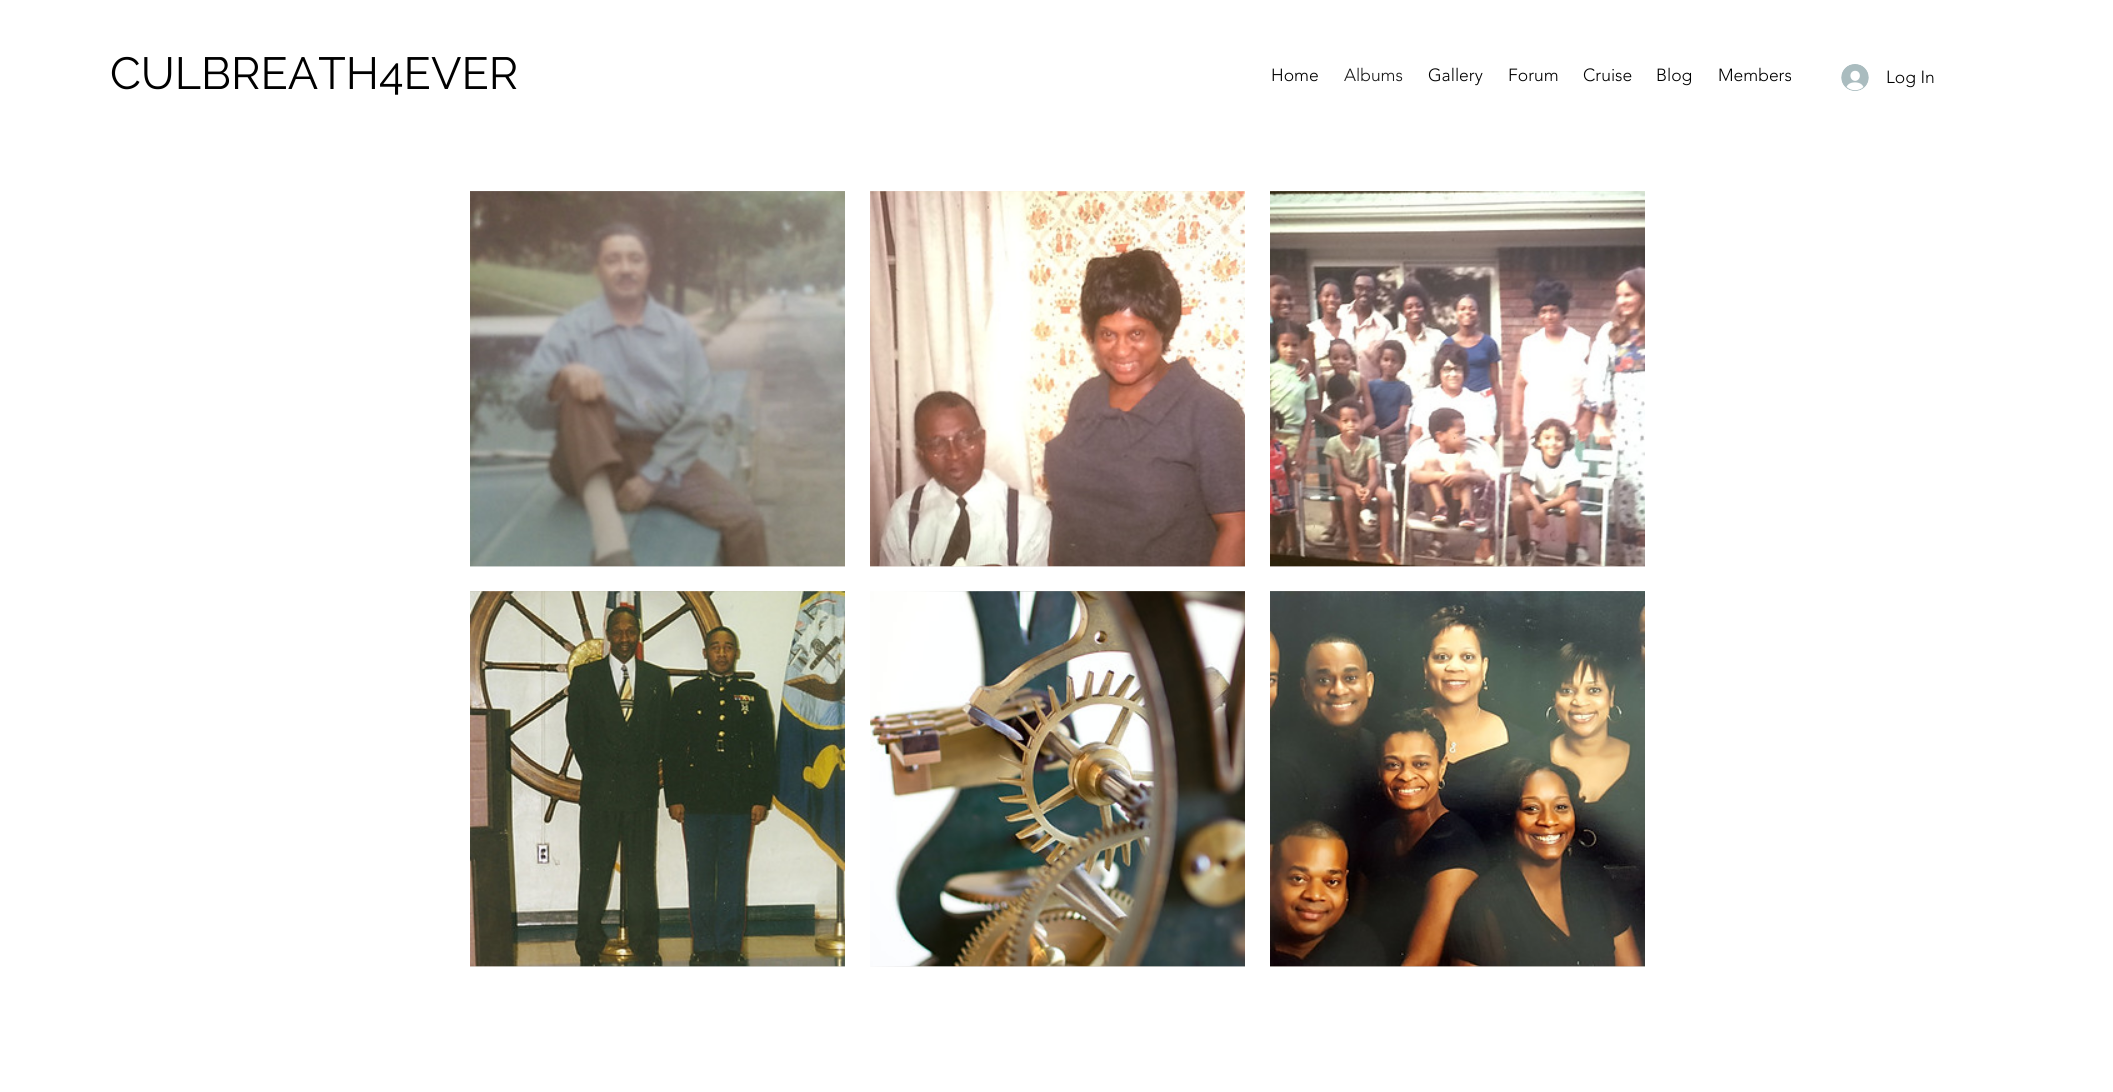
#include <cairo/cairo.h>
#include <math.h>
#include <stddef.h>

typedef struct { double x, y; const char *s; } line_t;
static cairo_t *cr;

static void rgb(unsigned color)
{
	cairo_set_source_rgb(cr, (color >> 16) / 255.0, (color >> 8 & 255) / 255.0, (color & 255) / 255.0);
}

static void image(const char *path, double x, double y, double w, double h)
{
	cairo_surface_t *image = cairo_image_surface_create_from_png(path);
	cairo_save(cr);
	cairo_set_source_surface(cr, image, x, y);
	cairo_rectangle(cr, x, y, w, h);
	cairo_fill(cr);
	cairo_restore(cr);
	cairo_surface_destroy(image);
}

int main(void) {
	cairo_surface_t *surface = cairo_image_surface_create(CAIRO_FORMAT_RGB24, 2113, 1092);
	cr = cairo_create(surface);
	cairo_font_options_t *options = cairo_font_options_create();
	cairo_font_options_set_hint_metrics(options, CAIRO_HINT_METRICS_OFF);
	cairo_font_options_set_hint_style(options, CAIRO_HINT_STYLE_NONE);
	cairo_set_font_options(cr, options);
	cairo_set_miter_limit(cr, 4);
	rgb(0xffffff);
	cairo_paint(cr);
	image("img/1.png", 1841, 64, 28, 27);
	image("img/2.png", 470, 191, 375, 376);
	image("img/3.png", 470, 191, 375, 376);
	image("img/4.png", 870, 191, 375, 376);
	image("img/5.png", 870, 191, 375, 376);
	image("img/6.png", 1270, 191, 375, 376);
	image("img/7.png", 1270, 191, 375, 376);
	image("img/8.png", 470, 591, 375, 376);
	image("img/9.png", 470, 591, 375, 376);
	image("img/10.png", 870, 591, 375, 376);
	image("img/11.png", 870, 591, 375, 376);
	image("img/12.png", 1270, 591, 375, 376);
	image("img/13.png", 1270, 591, 375, 376);
	cairo_select_font_face(cr, "Raleway", CAIRO_FONT_SLANT_NORMAL, CAIRO_FONT_WEIGHT_NORMAL);
	cairo_set_font_size(cr, 45);
	rgb(0x000000);
	cairo_move_to(cr, 110, 89);
	cairo_show_text(cr, "CULBREATH4EVER");
	cairo_select_font_face(cr, "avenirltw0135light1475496 Light", CAIRO_FONT_SLANT_NORMAL, CAIRO_FONT_WEIGHT_NORMAL);
	cairo_set_font_size(cr, 17.5);
	cairo_move_to(cr, 1271, 81);
	cairo_show_text(cr, "Home");
	rgb(0x191919);
	cairo_move_to(cr, 1344, 81);
	cairo_show_text(cr, "Albums");
	rgb(0x000000);
	{
		static const line_t items[] = {
			{1428, 81, "Gallery"},
			{1508, 81, "Forum"},
			{1583, 81, "Cruise"},
			{1656, 81, "Blog"},
			{1718, 81, "Members"},
			{1886, 83, "Log In"},
		};
		for (size_t i = 0; i < sizeof items / sizeof *items; i++) {
			cairo_move_to(cr, items[i].x, items[i].y);
			cairo_show_text(cr, items[i].s);
		}
	}
	cairo_surface_write_to_png(surface, "page.png");
	cairo_font_options_destroy(options);
	cairo_destroy(cr);
	cairo_surface_destroy(surface);
	return 0;
}
